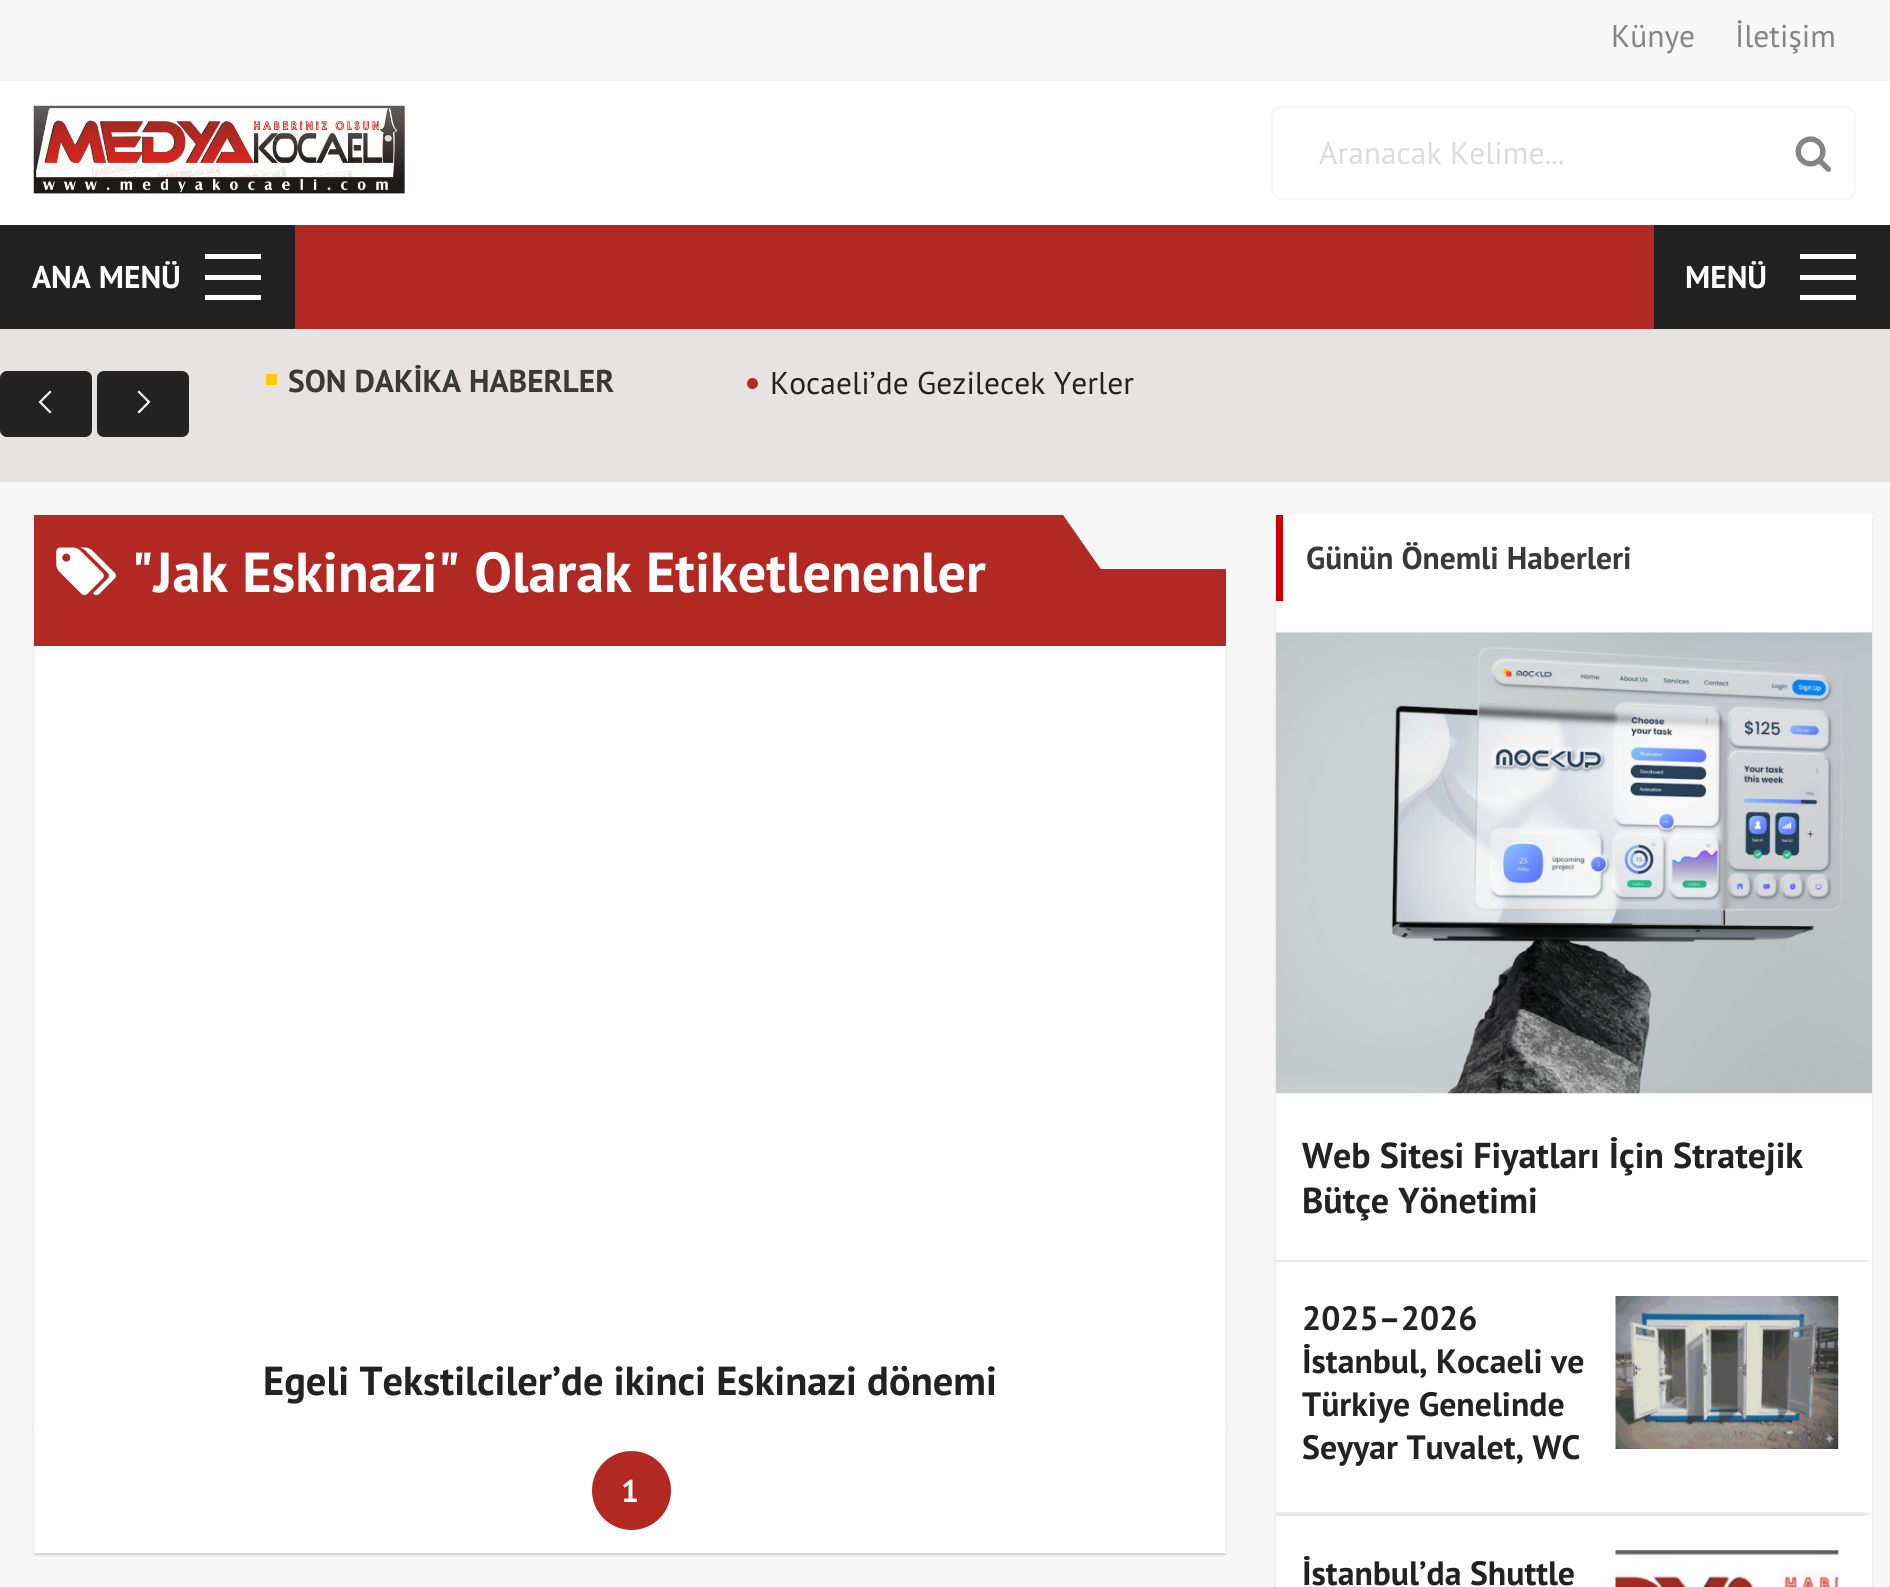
#include <cairo/cairo.h>
#include <math.h>
#include <stddef.h>

typedef struct { double x, y; const char *s; } line_t;
typedef struct { double x, y, w, h; unsigned color; } box_t;
static cairo_t *cr;

static void rgb(unsigned color)
{
	cairo_set_source_rgb(cr, (color >> 16) / 255.0, (color >> 8 & 255) / 255.0, (color & 255) / 255.0);
}

static void rrect(double x, double y, double w, double h, double r)
{
	cairo_new_sub_path(cr);
	cairo_arc(cr, x + w - r, y + h - r, r, 0, M_PI / 2);
	cairo_arc(cr, x + r, y + h - r, r, M_PI / 2, M_PI);
	cairo_arc(cr, x + r, y + r, r, M_PI, 1.5 * M_PI);
	cairo_arc(cr, x + w - r, y + r, r, 1.5 * M_PI, 2 * M_PI);
	cairo_close_path(cr);
}

static void soft_shadow(double x, double y, double w, double h, double r, double blur, double alpha)
{
	cairo_push_group_with_content(cr, CAIRO_CONTENT_ALPHA);
	cairo_set_operator(cr, CAIRO_OPERATOR_SOURCE);
	for (int i = 15; i >= -15 && fmin(w, h) + blur * i / 3 > 0; i -= 2) {
		double e = blur * i / 6;
		cairo_set_source_rgba(cr, 0, 0, 0, alpha * erfc((i - 1) / 8.5) / 2);
		rrect(x - e, y - e, w + 2 * e, h + 2 * e, fmax(0, fmin(r + e + blur * .6, fmin(w, h) / 2 + e)));
		cairo_fill(cr);
	}
	cairo_pattern_t *soft = cairo_pop_group(cr);
	cairo_mask(cr, soft);
	cairo_pattern_destroy(soft);
}

static void image(const char *path, double x, double y, double w, double h)
{
	cairo_surface_t *image = cairo_image_surface_create_from_png(path);
	cairo_save(cr);
	cairo_set_source_surface(cr, image, x, y);
	cairo_rectangle(cr, x, y, w, h);
	cairo_fill(cr);
	cairo_restore(cr);
	cairo_surface_destroy(image);
}

int main(void) {
	cairo_surface_t *surface = cairo_image_surface_create(CAIRO_FORMAT_RGB24, 1890, 1587);
	cr = cairo_create(surface);
	cairo_font_options_t *options = cairo_font_options_create();
	cairo_font_options_set_hint_metrics(options, CAIRO_HINT_METRICS_OFF);
	cairo_font_options_set_hint_style(options, CAIRO_HINT_STYLE_NONE);
	cairo_set_font_options(cr, options);
	cairo_set_miter_limit(cr, 4);
	rgb(0xf7f7f7);
	cairo_paint(cr);
	rgb(0xffffff);
	cairo_rectangle(cr, 0, 81, 1890, 144);
	cairo_fill(cr);
	image("img/1.png", 33, 105, 372, 89);
	rrect(1272, 107, 583, 92, 10);
	rgb(0xf7f7f7);
	cairo_stroke(cr);
	image("img/2.png", 1795, 136, 36, 36);
	{
		static const box_t items[] = {
			{295, 225, 1359, 104, 0xb22923},
			{0, 225, 295, 104, 0x222222},
			{205, 254, 56, 5, 0xffffff},
			{205, 275, 56, 5, 0xffffff},
			{205, 295, 56, 5, 0xffffff},
			{1654, 225, 236, 104, 0x222222},
			{1800, 254, 56, 5, 0xffffff},
			{1800, 275, 56, 5, 0xffffff},
			{1800, 295, 56, 5, 0xffffff},
			{0, 329, 1890, 153, 0xe8e3e3},
			{266, 374, 11, 11, 0xffcc00},
		};
		for (size_t i = 0; i < sizeof items / sizeof *items; i++) {
			rgb(items[i].color);
			cairo_rectangle(cr, items[i].x, items[i].y, items[i].w, items[i].h);
			cairo_fill(cr);
		}
	}
	rgb(0x222222);
	rrect(0, 371, 92, 66, 7);
	cairo_fill(cr);
	rgb(0xffffff);
	cairo_new_path(cr);
	cairo_move_to(cr, 40, 400.5);
	cairo_line_to(cr, 38.5, 402);
	cairo_line_to(cr, 50, 413.5);
	cairo_line_to(cr, 51.5, 412);
	cairo_line_to(cr, 41.5, 402);
	cairo_line_to(cr, 51.5, 392);
	cairo_line_to(cr, 50, 390.5);
	cairo_close_path(cr);
	cairo_fill(cr);
	rgb(0x222222);
	rrect(97, 371, 92, 66, 7);
	cairo_fill(cr);
	rgb(0xffffff);
	cairo_new_path(cr);
	cairo_move_to(cr, 149, 403.5);
	cairo_line_to(cr, 150.5, 402);
	cairo_line_to(cr, 139, 390.5);
	cairo_line_to(cr, 137.5, 392);
	cairo_line_to(cr, 147.5, 402);
	cairo_line_to(cr, 137.5, 412);
	cairo_line_to(cr, 139, 413.5);
	cairo_close_path(cr);
	cairo_fill(cr);
	rgb(0xb22923);
	cairo_arc(cr, 752.5, 383.5, 5.5, 0, 2 * M_PI);
	cairo_fill(cr);
	cairo_rectangle(cr, 34, 515, 111, 54);
	cairo_fill(cr);
	cairo_rectangle(cr, 34, 569, 1192, 77);
	cairo_fill(cr);
	cairo_new_path(cr);
	cairo_move_to(cr, 66, 515);
	cairo_line_to(cr, 1063, 515);
	cairo_line_to(cr, 1142, 628);
	cairo_line_to(cr, 145, 628);
	cairo_close_path(cr);
	cairo_fill(cr);
	image("img/3.png", 56, 547, 60, 49);
	rgb(0xd3d3d3);
	soft_shadow(34, 648, 1192, 783, 0, 1, 1);
	rgb(0xffffff);
	cairo_rectangle(cr, 34, 646, 1192, 783);
	cairo_fill(cr);
	rgb(0xd3d3d3);
	soft_shadow(34, 1431, 1192, 124, 0, 1, 1);
	rgb(0xffffff);
	cairo_rectangle(cr, 34, 1429, 1192, 124);
	cairo_fill(cr);
	rgb(0xb22923);
	cairo_arc(cr, 631.5, 1490.5, 38.5, 0, 2 * M_PI);
	cairo_fill_preserve(cr);
	cairo_stroke(cr);
	rgb(0xd3d3d3);
	soft_shadow(1276, 518, 596, 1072, 0, 1, 1);
	rgb(0xffffff);
	cairo_rectangle(cr, 1276, 515, 596, 1072);
	cairo_fill(cr);
	rgb(0xce0202);
	cairo_rectangle(cr, 1276, 515, 7, 86);
	cairo_fill(cr);
	image("img/4.png", 1276, 632, 596, 462);
	rgb(0xe6e6e6);
	cairo_new_path(cr);
	cairo_move_to(cr, 1276, 1260);
	cairo_line_to(cr, 1872, 1260);
	cairo_line_to(cr, 1863, 1262);
	cairo_line_to(cr, 1276, 1262);
	cairo_close_path(cr);
	cairo_fill(cr);
	rgb(0xeaeaea);
	cairo_new_path(cr);
	cairo_move_to(cr, 1872, 1514);
	cairo_line_to(cr, 1276, 1514);
	cairo_line_to(cr, 1276, 1512);
	cairo_line_to(cr, 1863, 1512);
	cairo_close_path(cr);
	cairo_fill(cr);
	image("img/5.png", 1615, 1296, 224, 153);
	rgb(0xe6e6e6);
	cairo_new_path(cr);
	cairo_move_to(cr, 1276, 1514);
	cairo_line_to(cr, 1872, 1514);
	cairo_line_to(cr, 1863, 1516);
	cairo_line_to(cr, 1276, 1516);
	cairo_close_path(cr);
	cairo_fill(cr);
	image("img/6.png", 1615, 1550, 224, 37);
	cairo_select_font_face(cr, "PT Sans", CAIRO_FONT_SLANT_NORMAL, CAIRO_FONT_WEIGHT_NORMAL);
	cairo_set_font_size(cr, 31.5);
	rgb(0x858585);
	cairo_move_to(cr, 1611, 47);
	cairo_show_text(cr, "Künye");
	cairo_move_to(cr, 1735, 47);
	cairo_show_text(cr, "İletişim");
	rgb(0xdcdcdc);
	cairo_move_to(cr, 1319, 164);
	cairo_show_text(cr, "Aranacak Kelime...");
	cairo_select_font_face(cr, "PT Sans", CAIRO_FONT_SLANT_NORMAL, CAIRO_FONT_WEIGHT_BOLD);
	rgb(0xffffff);
	cairo_move_to(cr, 32, 288);
	cairo_show_text(cr, "ANA MENÜ");
	cairo_move_to(cr, 1685, 288);
	cairo_show_text(cr, "MENÜ");
	rgb(0x393939);
	cairo_move_to(cr, 288, 392);
	cairo_show_text(cr, "SON DAKİKA HABERLER");
	cairo_select_font_face(cr, "PT Sans", CAIRO_FONT_SLANT_NORMAL, CAIRO_FONT_WEIGHT_NORMAL);
	rgb(0x222222);
	cairo_move_to(cr, 770, 394);
	cairo_show_text(cr, "Kocaeli’de Gezilecek Yerler");
	cairo_select_font_face(cr, "PT Sans", CAIRO_FONT_SLANT_NORMAL, CAIRO_FONT_WEIGHT_BOLD);
	cairo_set_font_size(cr, 56.25);
	rgb(0xffffff);
	cairo_move_to(cr, 131, 592);
	cairo_show_text(cr, "\"Jak Eskinazi\" Olarak Etiketlenenler");
	cairo_set_font_size(cr, 40.5);
	rgb(0x222222);
	cairo_move_to(cr, 263, 1395);
	cairo_show_text(cr, "Egeli Tekstilciler’de ikinci Eskinazi dönemi");
	cairo_set_font_size(cr, 31.5);
	rgb(0xffffff);
	cairo_move_to(cr, 621, 1502);
	cairo_show_text(cr, "1");
	rgb(0x393939);
	cairo_move_to(cr, 1306, 569);
	cairo_show_text(cr, "Günün Önemli Haberleri");
	cairo_set_font_size(cr, 36);
	rgb(0x222222);
	cairo_move_to(cr, 1302, 1168);
	cairo_show_text(cr, "Web Sitesi Fiyatları İçin Stratejik");
	cairo_move_to(cr, 1302, 1213);
	cairo_show_text(cr, "Bütçe Yönetimi");
	cairo_set_font_size(cr, 33.75);
	{
		static const line_t items[] = {
			{1302, 1330, "2025–2026"},
			{1302, 1373, "İstanbul, Kocaeli ve"},
			{1302, 1416, "Türkiye Genelinde"},
			{1302, 1459, "Seyyar Tuvalet, WC"},
			{1302, 1585, "İstanbul’da Shuttle"},
		};
		for (size_t i = 0; i < sizeof items / sizeof *items; i++) {
			cairo_move_to(cr, items[i].x, items[i].y);
			cairo_show_text(cr, items[i].s);
		}
	}
	cairo_surface_write_to_png(surface, "page.png");
	cairo_font_options_destroy(options);
	cairo_destroy(cr);
	cairo_surface_destroy(surface);
	return 0;
}
